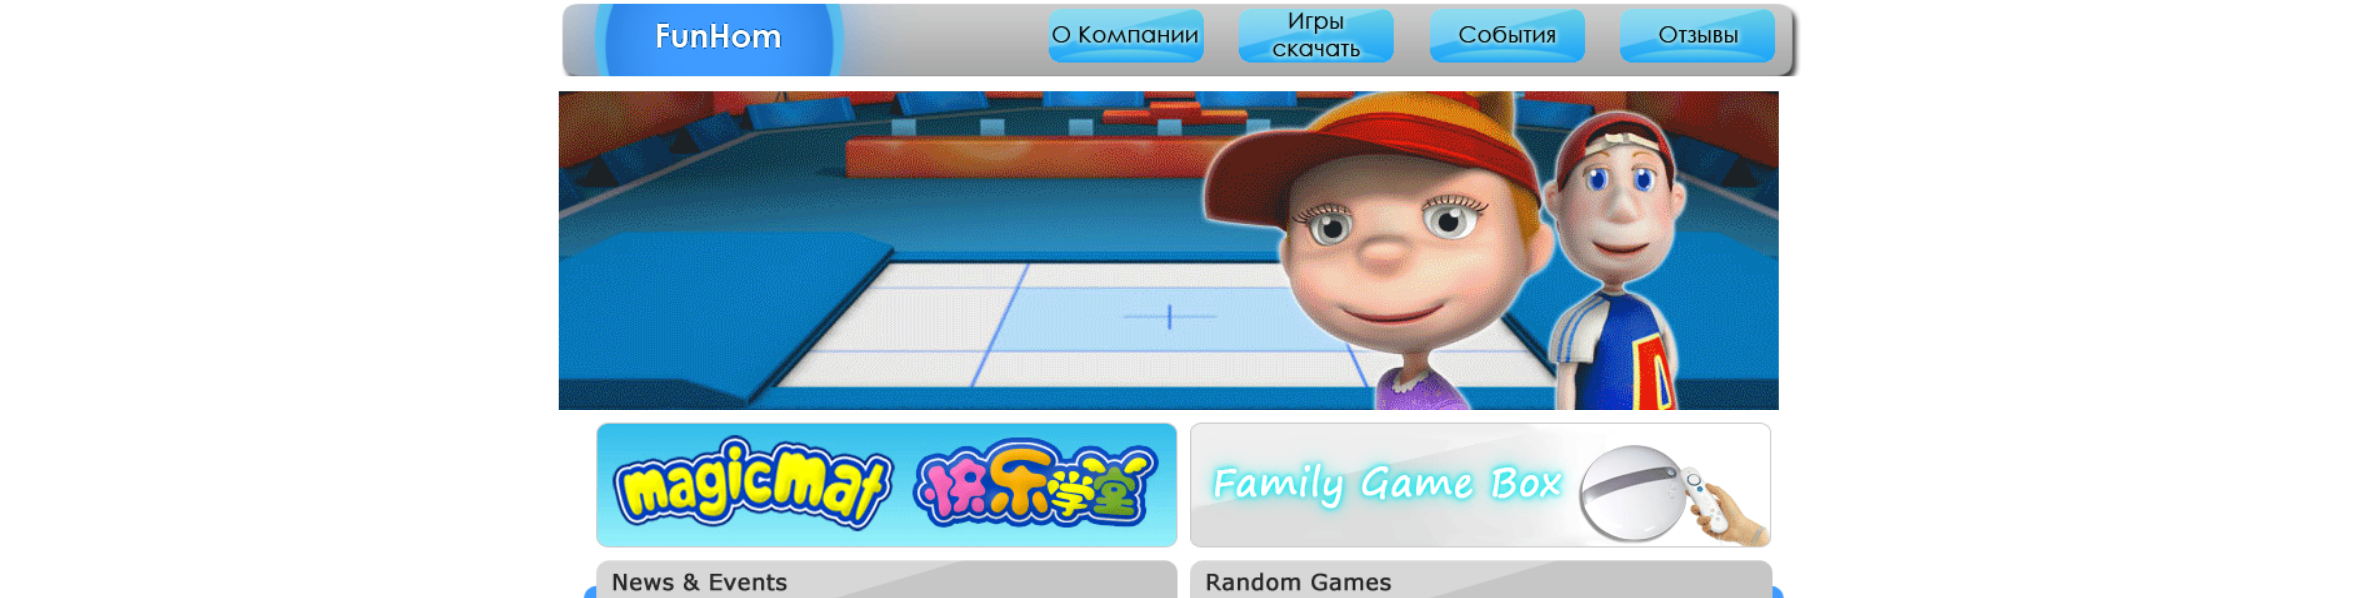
#include <cairo/cairo.h>
#include <math.h>
#include <stddef.h>

static cairo_t *cr;

static void rgb(unsigned color)
{
	cairo_set_source_rgb(cr, (color >> 16) / 255.0, (color >> 8 & 255) / 255.0, (color & 255) / 255.0);
}

static void image(const char *path, double x, double y, double w, double h)
{
	cairo_surface_t *image = cairo_image_surface_create_from_png(path);
	cairo_save(cr);
	cairo_set_source_surface(cr, image, x, y);
	cairo_rectangle(cr, x, y, w, h);
	cairo_fill(cr);
	cairo_restore(cr);
	cairo_surface_destroy(image);
}

int main(void) {
	cairo_surface_t *surface = cairo_image_surface_create(CAIRO_FORMAT_RGB24, 2366, 598);
	cr = cairo_create(surface);
	cairo_font_options_t *options = cairo_font_options_create();
	cairo_font_options_set_hint_metrics(options, CAIRO_HINT_METRICS_OFF);
	cairo_font_options_set_hint_style(options, CAIRO_HINT_STYLE_NONE);
	cairo_set_font_options(cr, options);
	cairo_set_miter_limit(cr, 4);
	rgb(0xffffff);
	cairo_paint(cr);
	image("img/1.png", 561, 3, 1240, 74);
	image("img/2.png", 656, 22, 126, 27);
	image("img/3.png", 1048, 8, 156, 55);
	image("img/4.png", 1238, 8, 156, 55);
	image("img/5.png", 1429, 8, 157, 55);
	image("img/6.png", 1619, 8, 157, 55);
	image("img/7.png", 558, 91, 1221, 319);
	image("img/8.png", 596, 422, 582, 126);
	image("img/9.png", 1190, 422, 582, 126);
	image("img/10.png", 583, 560, 595, 38);
	image("img/11.png", 1772, 585, 12, 13);
	image("img/12.png", 1190, 560, 583, 38);
	cairo_surface_write_to_png(surface, "page.png");
	cairo_font_options_destroy(options);
	cairo_destroy(cr);
	cairo_surface_destroy(surface);
	return 0;
}
